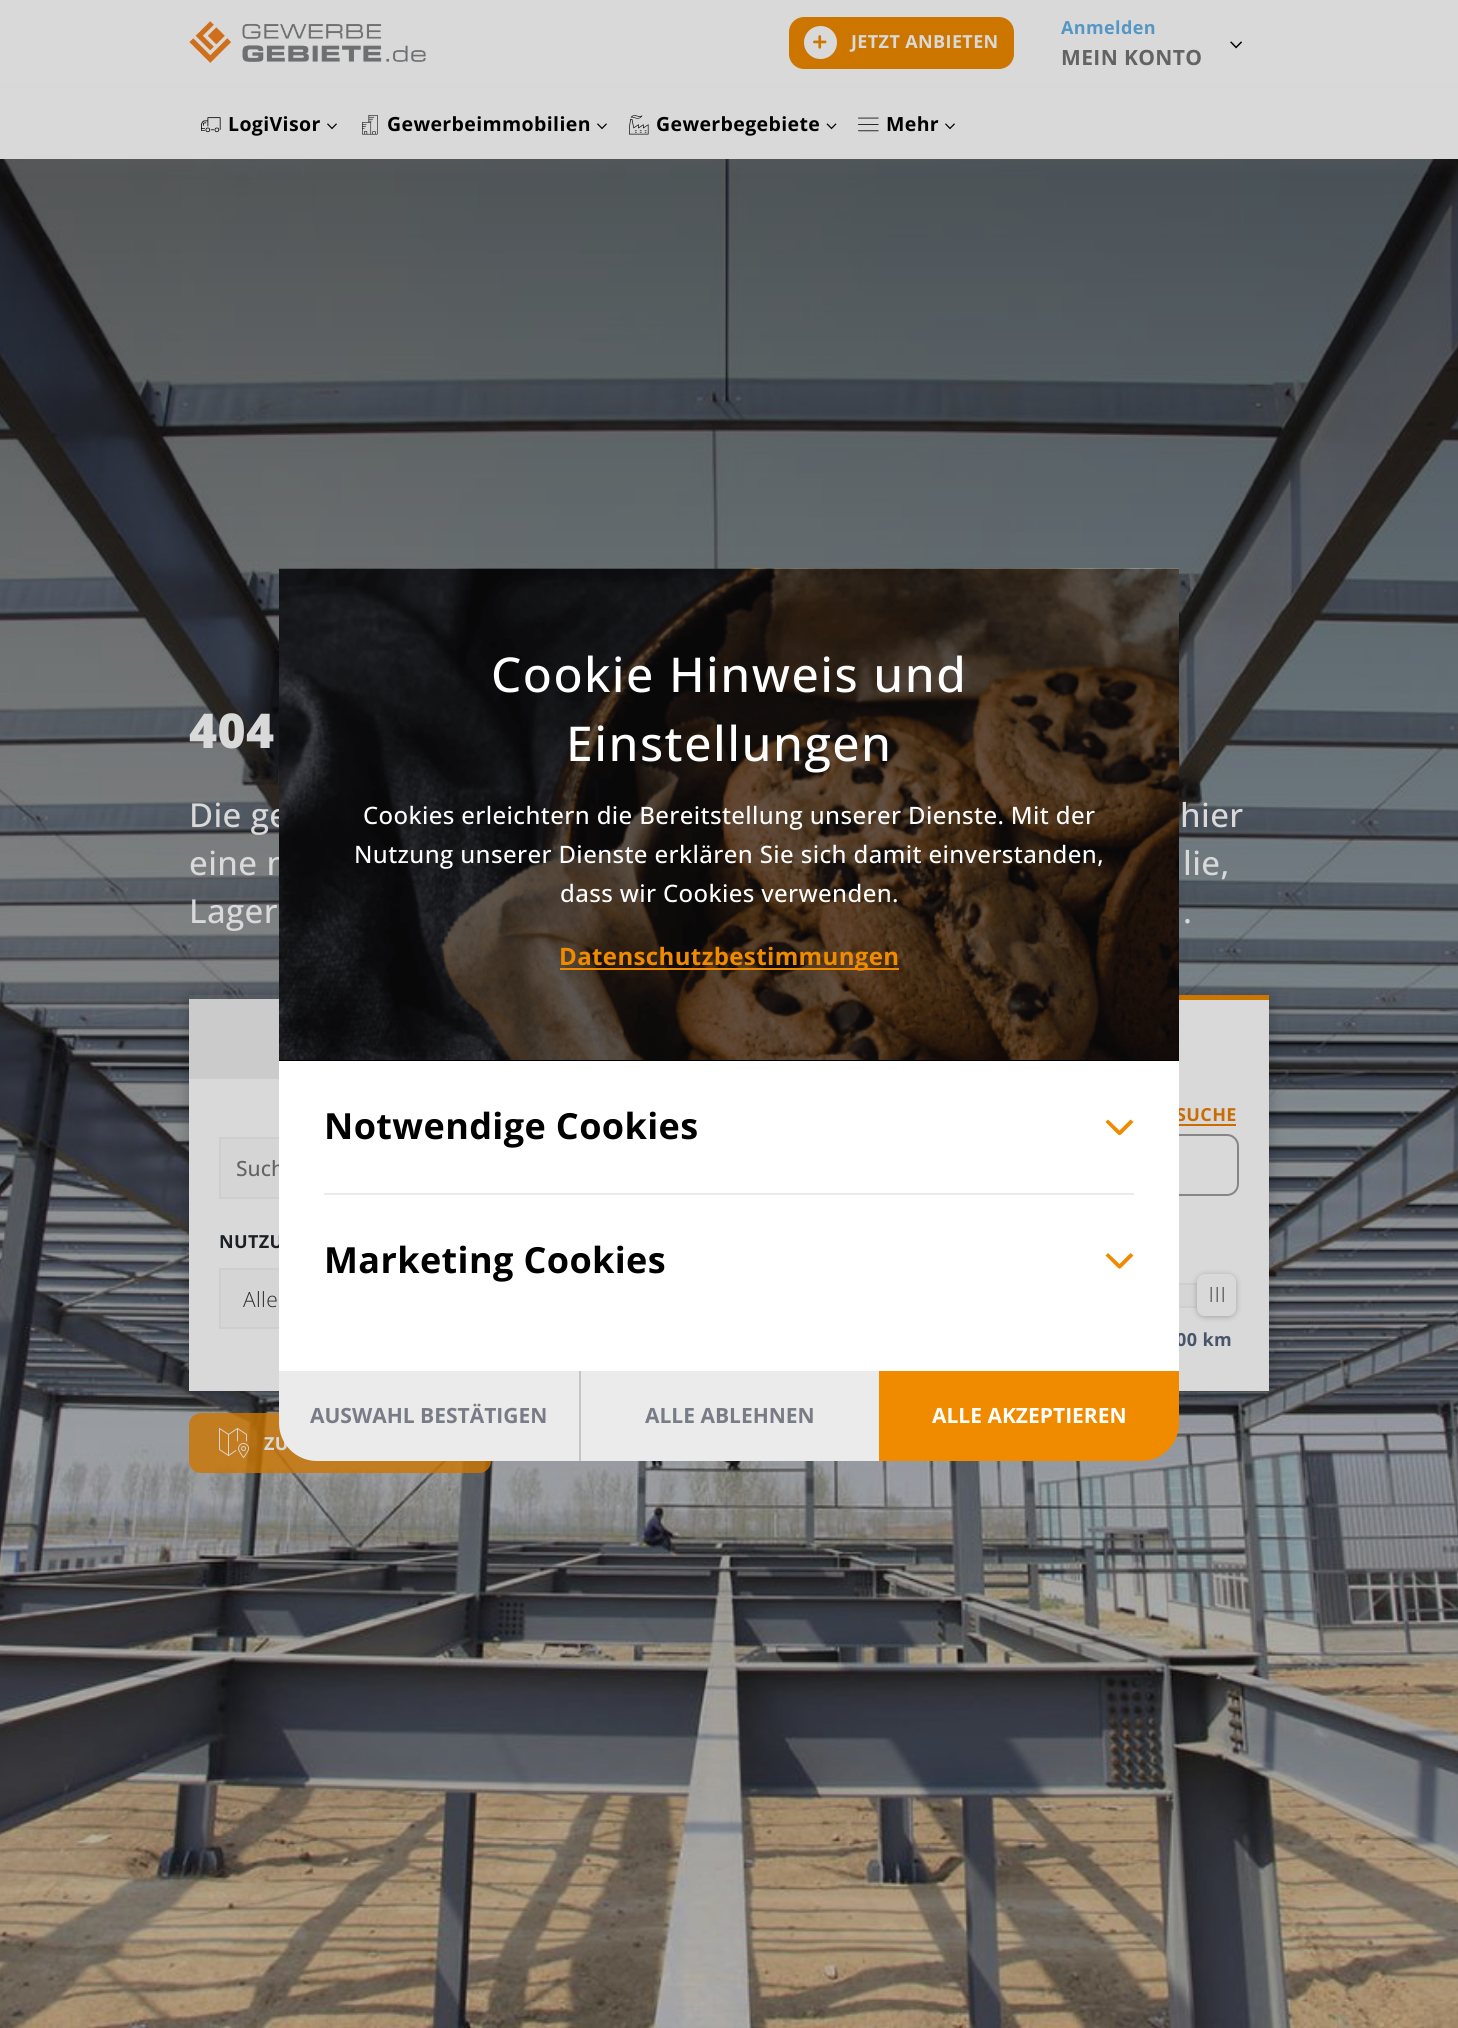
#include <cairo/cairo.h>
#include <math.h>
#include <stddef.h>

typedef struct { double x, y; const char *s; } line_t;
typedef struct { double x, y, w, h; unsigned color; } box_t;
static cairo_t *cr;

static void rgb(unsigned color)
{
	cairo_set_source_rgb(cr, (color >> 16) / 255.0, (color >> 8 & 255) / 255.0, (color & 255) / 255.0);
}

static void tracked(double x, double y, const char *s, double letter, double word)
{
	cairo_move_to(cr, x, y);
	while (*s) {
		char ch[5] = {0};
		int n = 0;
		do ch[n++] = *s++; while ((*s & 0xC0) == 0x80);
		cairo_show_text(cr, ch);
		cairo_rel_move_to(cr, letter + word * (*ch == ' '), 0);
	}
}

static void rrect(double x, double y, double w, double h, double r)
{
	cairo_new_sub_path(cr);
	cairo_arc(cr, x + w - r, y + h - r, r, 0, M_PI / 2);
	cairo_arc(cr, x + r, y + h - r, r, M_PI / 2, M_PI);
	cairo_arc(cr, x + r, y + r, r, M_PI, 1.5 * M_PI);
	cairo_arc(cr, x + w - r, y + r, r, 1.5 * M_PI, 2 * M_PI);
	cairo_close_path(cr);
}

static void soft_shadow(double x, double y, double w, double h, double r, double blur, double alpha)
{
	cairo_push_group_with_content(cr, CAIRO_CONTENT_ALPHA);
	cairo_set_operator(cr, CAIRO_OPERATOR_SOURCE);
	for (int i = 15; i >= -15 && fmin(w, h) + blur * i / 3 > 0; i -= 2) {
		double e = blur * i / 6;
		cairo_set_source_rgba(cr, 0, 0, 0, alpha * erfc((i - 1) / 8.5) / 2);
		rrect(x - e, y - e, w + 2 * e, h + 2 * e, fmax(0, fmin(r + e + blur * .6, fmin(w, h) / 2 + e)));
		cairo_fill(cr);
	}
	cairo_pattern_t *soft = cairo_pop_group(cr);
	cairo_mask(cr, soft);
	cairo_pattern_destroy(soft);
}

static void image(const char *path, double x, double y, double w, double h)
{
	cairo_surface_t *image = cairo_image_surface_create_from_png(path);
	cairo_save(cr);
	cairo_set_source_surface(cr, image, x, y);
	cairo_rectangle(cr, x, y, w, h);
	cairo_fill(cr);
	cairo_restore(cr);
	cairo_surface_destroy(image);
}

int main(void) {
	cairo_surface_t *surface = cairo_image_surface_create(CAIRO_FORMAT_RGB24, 1458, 2028);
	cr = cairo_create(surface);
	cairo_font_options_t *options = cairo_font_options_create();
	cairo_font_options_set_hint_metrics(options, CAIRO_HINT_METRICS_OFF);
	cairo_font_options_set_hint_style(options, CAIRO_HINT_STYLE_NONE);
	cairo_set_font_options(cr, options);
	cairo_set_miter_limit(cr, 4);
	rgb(0xd9d9d9);
	cairo_paint(cr);
	image("img/1.png", 189, 21, 237, 42);
	rgb(0xcc7600);
	rrect(789, 17, 225, 52, 15);
	cairo_fill(cr);
	rgb(0xd9d9d9);
	cairo_arc(cr, 820.5, 42.5, 16.5, 0, 2 * M_PI);
	cairo_fill(cr);
	image("img/2.png", 813, 35, 14, 14);
	image("img/3.png", 1230, 41, 12, 8);
	image("img/11.png", 0, 159, 1458, 1869);
	rgb(0x746f6f);
	soft_shadow(0, 92, 1458, 75, 0, 6, 0.1);
	rgb(0xd9d9d9);
	cairo_rectangle(cr, 0, 88, 1458, 71);
	cairo_fill(cr);
	image("img/4.png", 201, 117, 20, 16);
	image("img/5.png", 327, 123, 10, 7);
	image("img/6.png", 362, 115, 16, 20);
	image("img/5.png", 597, 123, 10, 7);
	image("img/7.png", 629, 115, 20, 20);
	image("img/8.png", 826, 123, 11, 7);
	image("img/9.png", 858, 117, 21, 15);
	image("img/5.png", 945, 123, 10, 7);
	cairo_set_source_rgba(cr, 0.8, 0.463, 0, 0.8);
	rrect(189, 1413, 302, 60, 12);
	cairo_fill(cr);
	cairo_save(cr);
	cairo_set_fill_rule(cr, CAIRO_FILL_RULE_EVEN_ODD);
	cairo_new_path(cr);
	cairo_move_to(cr, 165, 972);
	cairo_line_to(cr, 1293, 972);
	cairo_line_to(cr, 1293, 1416);
	cairo_line_to(cr, 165, 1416);
	cairo_close_path(cr);
	cairo_move_to(cr, 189, 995);
	cairo_line_to(cr, 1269, 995);
	cairo_line_to(cr, 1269, 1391);
	cairo_line_to(cr, 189, 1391);
	cairo_close_path(cr);
	cairo_clip(cr);
	rgb(0x000000);
	soft_shadow(189, 996, 1080, 396, 0, 7.5, 0.25);
	cairo_restore(cr);
	{
		static const box_t items[] = {
			{189, 1079, 1080, 312, 0xd9d9d9},
			{581, 1371, 298, 90, 0xebebeb},
			{579, 1371, 2, 90, 0xc5c5c5},
		};
		for (size_t i = 0; i < sizeof items / sizeof *items; i++) {
			rgb(items[i].color);
			cairo_rectangle(cr, items[i].x, items[i].y, items[i].w, items[i].h);
			cairo_fill(cr);
		}
	}
	rgb(0xf08b00);
	cairo_new_path(cr);
	cairo_move_to(cr, 879, 1371);
	cairo_line_to(cr, 1179, 1371);
	cairo_line_to(cr, 1179, 1423);
	cairo_curve_to(cr, 1179, 1444, 1162, 1461, 1141, 1461);
	cairo_line_to(cr, 879, 1461);
	cairo_close_path(cr);
	cairo_fill(cr);
	{
		static const box_t items[] = {
			{189, 999, 90, 80, 0xcbcbcb},
			{1179, 1000, 90, 79, 0xd9d9d9},
			{1179, 995, 90, 5, 0xcc7600},
			{1179, 1124, 57, 2, 0xca6c01},
		};
		for (size_t i = 0; i < sizeof items / sizeof *items; i++) {
			rgb(items[i].color);
			cairo_rectangle(cr, items[i].x, items[i].y, items[i].w, items[i].h);
			cairo_fill(cr);
		}
	}
	rrect(997, 1135, 241, 60, 11);
	rgb(0x868686);
	cairo_stroke(cr);
	rgb(0xd5d5d5);
	cairo_rectangle(cr, 221, 1139, 58, 58);
	cairo_fill(cr);
	cairo_rectangle(cr, 220, 1138, 501, 60);
	rgb(0xcecece);
	cairo_stroke(cr);
	rgb(0xd5d5d5);
	cairo_rectangle(cr, 221, 1270, 58, 57);
	cairo_fill(cr);
	cairo_rectangle(cr, 220, 1269, 501, 59);
	rgb(0xcecece);
	cairo_stroke(cr);
	rgb(0xd5d5d5);
	cairo_rectangle(cr, 1179, 1285, 18, 21);
	cairo_fill(cr);
	cairo_rectangle(cr, 741, 1284, 475, 23);
	rgb(0xcecece);
	cairo_stroke(cr);
	rgb(0x000000);
	soft_shadow(1197, 1275, 39, 42, 8, 3, 0.25);
	rgb(0xd9d9d9);
	rrect(1197, 1274, 39, 42, 8);
	cairo_fill(cr);
	image("img/12.png", 1210, 1287, 14, 15);
	image("img/13.png", 219, 1428, 30, 30);
	cairo_select_font_face(cr, "Open Sans", CAIRO_FONT_SLANT_NORMAL, CAIRO_FONT_WEIGHT_BOLD);
	cairo_set_font_size(cr, 18);
	tracked(851, 48, "JETZT ANBIETEN", 0.38, 0);
	rgb(0x5496c4);
	tracked(1061, 34, "Anmelden", 0.38, 0);
	cairo_set_font_size(cr, 21);
	rgb(0x636363);
	tracked(1061, 65, "MEIN KONTO", 0.38, 0);
	cairo_set_font_size(cr, 19.5);
	rgb(0x000000);
	{
		static const line_t items[] = {
			{228, 131, "LogiVisor"},
			{387, 131, "Gewerbeimmobilien"},
			{656, 131, "Gewerbegebiete"},
			{886, 131, "Mehr"},
		};
		for (size_t i = 0; i < sizeof items / sizeof *items; i++) {
			tracked(items[i].x, items[i].y, items[i].s, 0.38, 0);
		}
	}
	cairo_set_font_size(cr, 21);
	rgb(0x787c86);
	cairo_move_to(cr, 645, 1423);
	cairo_show_text(cr, "ALLE ABLEHNEN");
	rgb(0xffffff);
	cairo_move_to(cr, 932, 1423);
	cairo_show_text(cr, "ALLE AKZEPTIEREN");
	cairo_select_font_face(cr, "Open Sans ExtraBold", CAIRO_FONT_SLANT_NORMAL, CAIRO_FONT_WEIGHT_NORMAL);
	cairo_set_font_size(cr, 48);
	rgb(0xd9d9d9);
	tracked(189, 748, "404", 0.38, 0);
	cairo_select_font_face(cr, "Open Sans Medium", CAIRO_FONT_SLANT_NORMAL, CAIRO_FONT_WEIGHT_NORMAL);
	cairo_set_font_size(cr, 33);
	{
		static const line_t items[] = {
			{189, 827, "Die ge"},
			{1180, 827, "hier"},
			{189, 875, "eine n"},
		};
		for (size_t i = 0; i < sizeof items / sizeof *items; i++) {
			tracked(items[i].x, items[i].y, items[i].s, 0.38, 0);
		}
	}
	rgb(0x000000);
	cairo_rectangle(cr, 279, 569, 900, 492);
	cairo_fill(cr);
	image("img/10.png", 279, 568, 900, 492);
	rgb(0xf08b00);
	cairo_rectangle(cr, 560, 968, 339, 2);
	cairo_fill(cr);
	cairo_select_font_face(cr, "Open Sans", CAIRO_FONT_SLANT_NORMAL, CAIRO_FONT_WEIGHT_BOLD);
	cairo_set_font_size(cr, 24);
	tracked(559, 965, "Datenschutzbestimmungen", 0.38, 0);
	cairo_select_font_face(cr, "Open Sans Medium", CAIRO_FONT_SLANT_NORMAL, CAIRO_FONT_WEIGHT_NORMAL);
	rgb(0xffffff);
	{
		static const line_t items[] = {
			{560, 902, "dass wir Cookies verwenden."},
			{354, 863, "Nutzung unserer Dienste erklären Sie sich damit einverstanden,"},
			{363, 824, "Cookies erleichtern die Bereitstellung unserer Dienste. Mit der"},
		};
		for (size_t i = 0; i < sizeof items / sizeof *items; i++) {
			tracked(items[i].x, items[i].y, items[i].s, 0.38, 0);
		}
	}
	cairo_set_font_size(cr, 48);
	tracked(566, 761, "Einstellungen", 1.5, 0);
	tracked(491, 692, "Cookie Hinweis und", 1.5, 0);
	cairo_set_font_size(cr, 33);
	rgb(0xd9d9d9);
	{
		static const line_t items[] = {
			{1183, 875, "lie,"},
			{189, 923, "Lager"},
			{1183, 923, "."},
		};
		for (size_t i = 0; i < sizeof items / sizeof *items; i++) {
			tracked(items[i].x, items[i].y, items[i].s, 0.38, 0);
		}
	}
	cairo_select_font_face(cr, "Open Sans", CAIRO_FONT_SLANT_NORMAL, CAIRO_FONT_WEIGHT_BOLD);
	cairo_set_font_size(cr, 18);
	rgb(0xca6c01);
	tracked(1176, 1121, "SUCHE", 0.38, 0);
	cairo_select_font_face(cr, "Open Sans Medium", CAIRO_FONT_SLANT_NORMAL, CAIRO_FONT_WEIGHT_NORMAL);
	cairo_set_font_size(cr, 21);
	rgb(0x636363);
	cairo_move_to(cr, 236, 1176);
	cairo_show_text(cr, "Such");
	cairo_select_font_face(cr, "Open Sans", CAIRO_FONT_SLANT_NORMAL, CAIRO_FONT_WEIGHT_BOLD);
	cairo_set_font_size(cr, 18);
	rgb(0x1c1f23);
	tracked(219, 1248, "NUTZU", 0.38, 0);
	cairo_select_font_face(cr, "Open Sans Light", CAIRO_FONT_SLANT_NORMAL, CAIRO_FONT_WEIGHT_NORMAL);
	cairo_set_font_size(cr, 21);
	rgb(0x2b2b2b);
	tracked(243, 1307, "Alle", 0.38, 0);
	cairo_select_font_face(cr, "Open Sans", CAIRO_FONT_SLANT_NORMAL, CAIRO_FONT_WEIGHT_BOLD);
	cairo_set_font_size(cr, 18);
	rgb(0x48546a);
	tracked(1176, 1346, "00 km", 0.38, 0);
	rgb(0xffffff);
	cairo_rectangle(cr, 279, 1061, 900, 310);
	cairo_fill(cr);
	rgb(0xf08b00);
	cairo_new_path(cr);
	cairo_move_to(cr, 1130.5, 1253);
	cairo_line_to(cr, 1119.5, 1264);
	cairo_line_to(cr, 1108, 1253);
	cairo_line_to(cr, 1105.5, 1255.5);
	cairo_line_to(cr, 1116, 1266);
	cairo_curve_to(cr, 1119.5, 1269.5, 1119.5, 1269.5, 1123, 1266);
	cairo_line_to(cr, 1133.5, 1255.5);
	cairo_close_path(cr);
	cairo_fill(cr);
	cairo_set_font_size(cr, 36);
	rgb(0x000000);
	tracked(324, 1273, "Marketing Cookies", 0.38, 0);
	rgb(0xf08b00);
	cairo_new_path(cr);
	cairo_move_to(cr, 1130.5, 1119.5);
	cairo_line_to(cr, 1119.5, 1130.5);
	cairo_line_to(cr, 1108, 1119.5);
	cairo_line_to(cr, 1105.5, 1122);
	cairo_line_to(cr, 1116, 1132.5);
	cairo_curve_to(cr, 1119.5, 1136, 1119.5, 1136, 1123, 1132.5);
	cairo_line_to(cr, 1133.5, 1122);
	cairo_close_path(cr);
	cairo_fill(cr);
	rgb(0x000000);
	tracked(324, 1139, "Notwendige Cookies", 0.38, 0);
	rgb(0xebebeb);
	cairo_rectangle(cr, 324, 1193, 810, 2);
	cairo_fill(cr);
	cairo_set_font_size(cr, 18);
	rgb(0xd9d9d9);
	tracked(264, 1450, "ZU", 0.38, 0);
	rgb(0xebebeb);
	cairo_new_path(cr);
	cairo_move_to(cr, 279, 1371);
	cairo_line_to(cr, 579, 1371);
	cairo_line_to(cr, 579, 1461);
	cairo_line_to(cr, 317, 1461);
	cairo_curve_to(cr, 296, 1461, 279, 1444, 279, 1423);
	cairo_close_path(cr);
	cairo_fill(cr);
	cairo_set_font_size(cr, 21);
	rgb(0x787c86);
	cairo_move_to(cr, 310, 1423);
	cairo_show_text(cr, "AUSWAHL BESTÄTIGEN");
	cairo_surface_write_to_png(surface, "page.png");
	cairo_font_options_destroy(options);
	cairo_destroy(cr);
	cairo_surface_destroy(surface);
	return 0;
}
